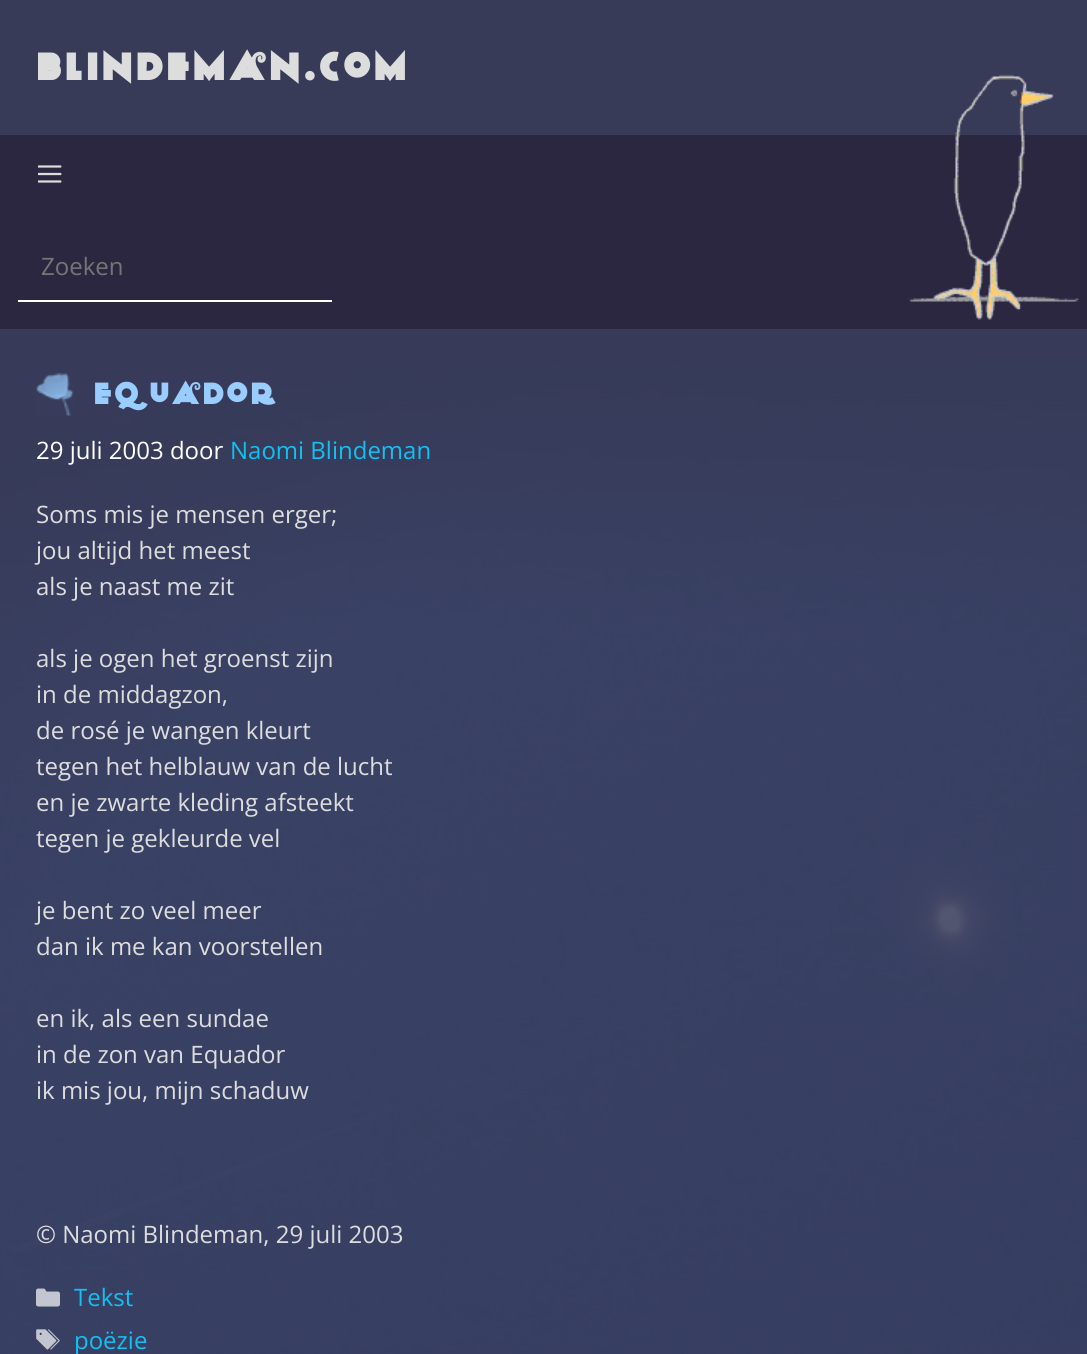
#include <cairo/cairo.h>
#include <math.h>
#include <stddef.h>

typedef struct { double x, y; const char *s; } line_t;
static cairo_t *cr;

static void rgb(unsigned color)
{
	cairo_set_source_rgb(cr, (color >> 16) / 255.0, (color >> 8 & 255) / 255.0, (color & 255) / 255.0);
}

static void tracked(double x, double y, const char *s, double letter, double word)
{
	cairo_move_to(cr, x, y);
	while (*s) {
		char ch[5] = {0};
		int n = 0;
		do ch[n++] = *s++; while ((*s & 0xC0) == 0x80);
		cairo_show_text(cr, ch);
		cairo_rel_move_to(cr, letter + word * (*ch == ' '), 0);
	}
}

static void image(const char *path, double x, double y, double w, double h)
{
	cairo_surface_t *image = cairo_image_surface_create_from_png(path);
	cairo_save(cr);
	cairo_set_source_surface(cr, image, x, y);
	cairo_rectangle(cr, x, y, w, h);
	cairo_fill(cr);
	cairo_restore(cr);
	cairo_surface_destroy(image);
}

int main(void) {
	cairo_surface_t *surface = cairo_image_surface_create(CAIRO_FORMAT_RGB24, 1087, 1354);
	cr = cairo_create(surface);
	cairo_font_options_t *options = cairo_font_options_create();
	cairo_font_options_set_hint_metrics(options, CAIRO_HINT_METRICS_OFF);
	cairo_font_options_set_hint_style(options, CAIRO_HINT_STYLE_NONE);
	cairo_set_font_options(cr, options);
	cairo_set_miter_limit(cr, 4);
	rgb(0x2b2740);
	cairo_paint(cr);
	image("img/1.png", 0, 329, 1087, 1025);
	rgb(0x373b58);
	cairo_rectangle(cr, 0, 0, 1087, 135);
	cairo_fill(cr);
	image("img/2.png", 38, 165, 24, 18);
	rgb(0xffffff);
	cairo_rectangle(cr, 18, 300, 314, 2);
	cairo_fill(cr);
	image("img/3.png", 908, 74, 171, 246);
	image("img/4.png", 36, 373, 38, 43);
	image("img/5.png", 36, 1288, 24, 19);
	image("img/6.png", 36, 1329, 24, 21);
	cairo_select_font_face(cr, "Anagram", CAIRO_FONT_SLANT_NORMAL, CAIRO_FONT_WEIGHT_BOLD);
	cairo_set_font_size(cr, 38.5);
	rgb(0xdddddd);
	tracked(38, 80, "blindeman.com", 5.75, 0);
	cairo_select_font_face(cr, "Open Sans", CAIRO_FONT_SLANT_NORMAL, CAIRO_FONT_WEIGHT_NORMAL);
	cairo_set_font_size(cr, 24);
	rgb(0x757575);
	cairo_move_to(cr, 41, 275);
	cairo_show_text(cr, "Zoeken");
	cairo_select_font_face(cr, "Anagram", CAIRO_FONT_SLANT_NORMAL, CAIRO_FONT_WEIGHT_NORMAL);
	cairo_set_font_size(cr, 31.25);
	rgb(0x99ccff);
	tracked(95, 404, "Equador", 3, 0);
	cairo_select_font_face(cr, "Open Sans", CAIRO_FONT_SLANT_NORMAL, CAIRO_FONT_WEIGHT_NORMAL);
	cairo_set_font_size(cr, 24);
	rgb(0xffffff);
	cairo_move_to(cr, 36, 459);
	cairo_show_text(cr, "29 juli 2003 door");
	rgb(0x12c0f1);
	cairo_move_to(cr, 230, 459);
	cairo_show_text(cr, "Naomi Blindeman");
	rgb(0xdddddd);
	{
		static const line_t items[] = {
			{36, 523, "Soms mis je mensen erger;"},
			{36, 559, "jou altijd het meest"},
			{36, 595, "als je naast me zit"},
			{36, 667, "als je ogen het groenst zijn"},
			{36, 703, "in de middagzon,"},
			{36, 739, "de rosé je wangen kleurt"},
			{36, 775, "tegen het helblauw van de lucht"},
			{36, 811, "en je zwarte kleding afsteekt"},
			{36, 847, "tegen je gekleurde vel"},
			{36, 919, "je bent zo veel meer"},
			{36, 955, "dan ik me kan voorstellen"},
			{36, 1027, "en ik, als een sundae"},
			{36, 1063, "in de zon van Equador"},
			{36, 1099, "ik mis jou, mijn schaduw"},
			{36, 1243, "© Naomi Blindeman, 29 juli 2003"},
		};
		for (size_t i = 0; i < sizeof items / sizeof *items; i++) {
			cairo_move_to(cr, items[i].x, items[i].y);
			cairo_show_text(cr, items[i].s);
		}
	}
	rgb(0x12c0f1);
	cairo_move_to(cr, 74, 1306);
	cairo_show_text(cr, "Tekst");
	cairo_move_to(cr, 74, 1349);
	cairo_show_text(cr, "poëzie");
	cairo_surface_write_to_png(surface, "page.png");
	cairo_font_options_destroy(options);
	cairo_destroy(cr);
	cairo_surface_destroy(surface);
	return 0;
}
